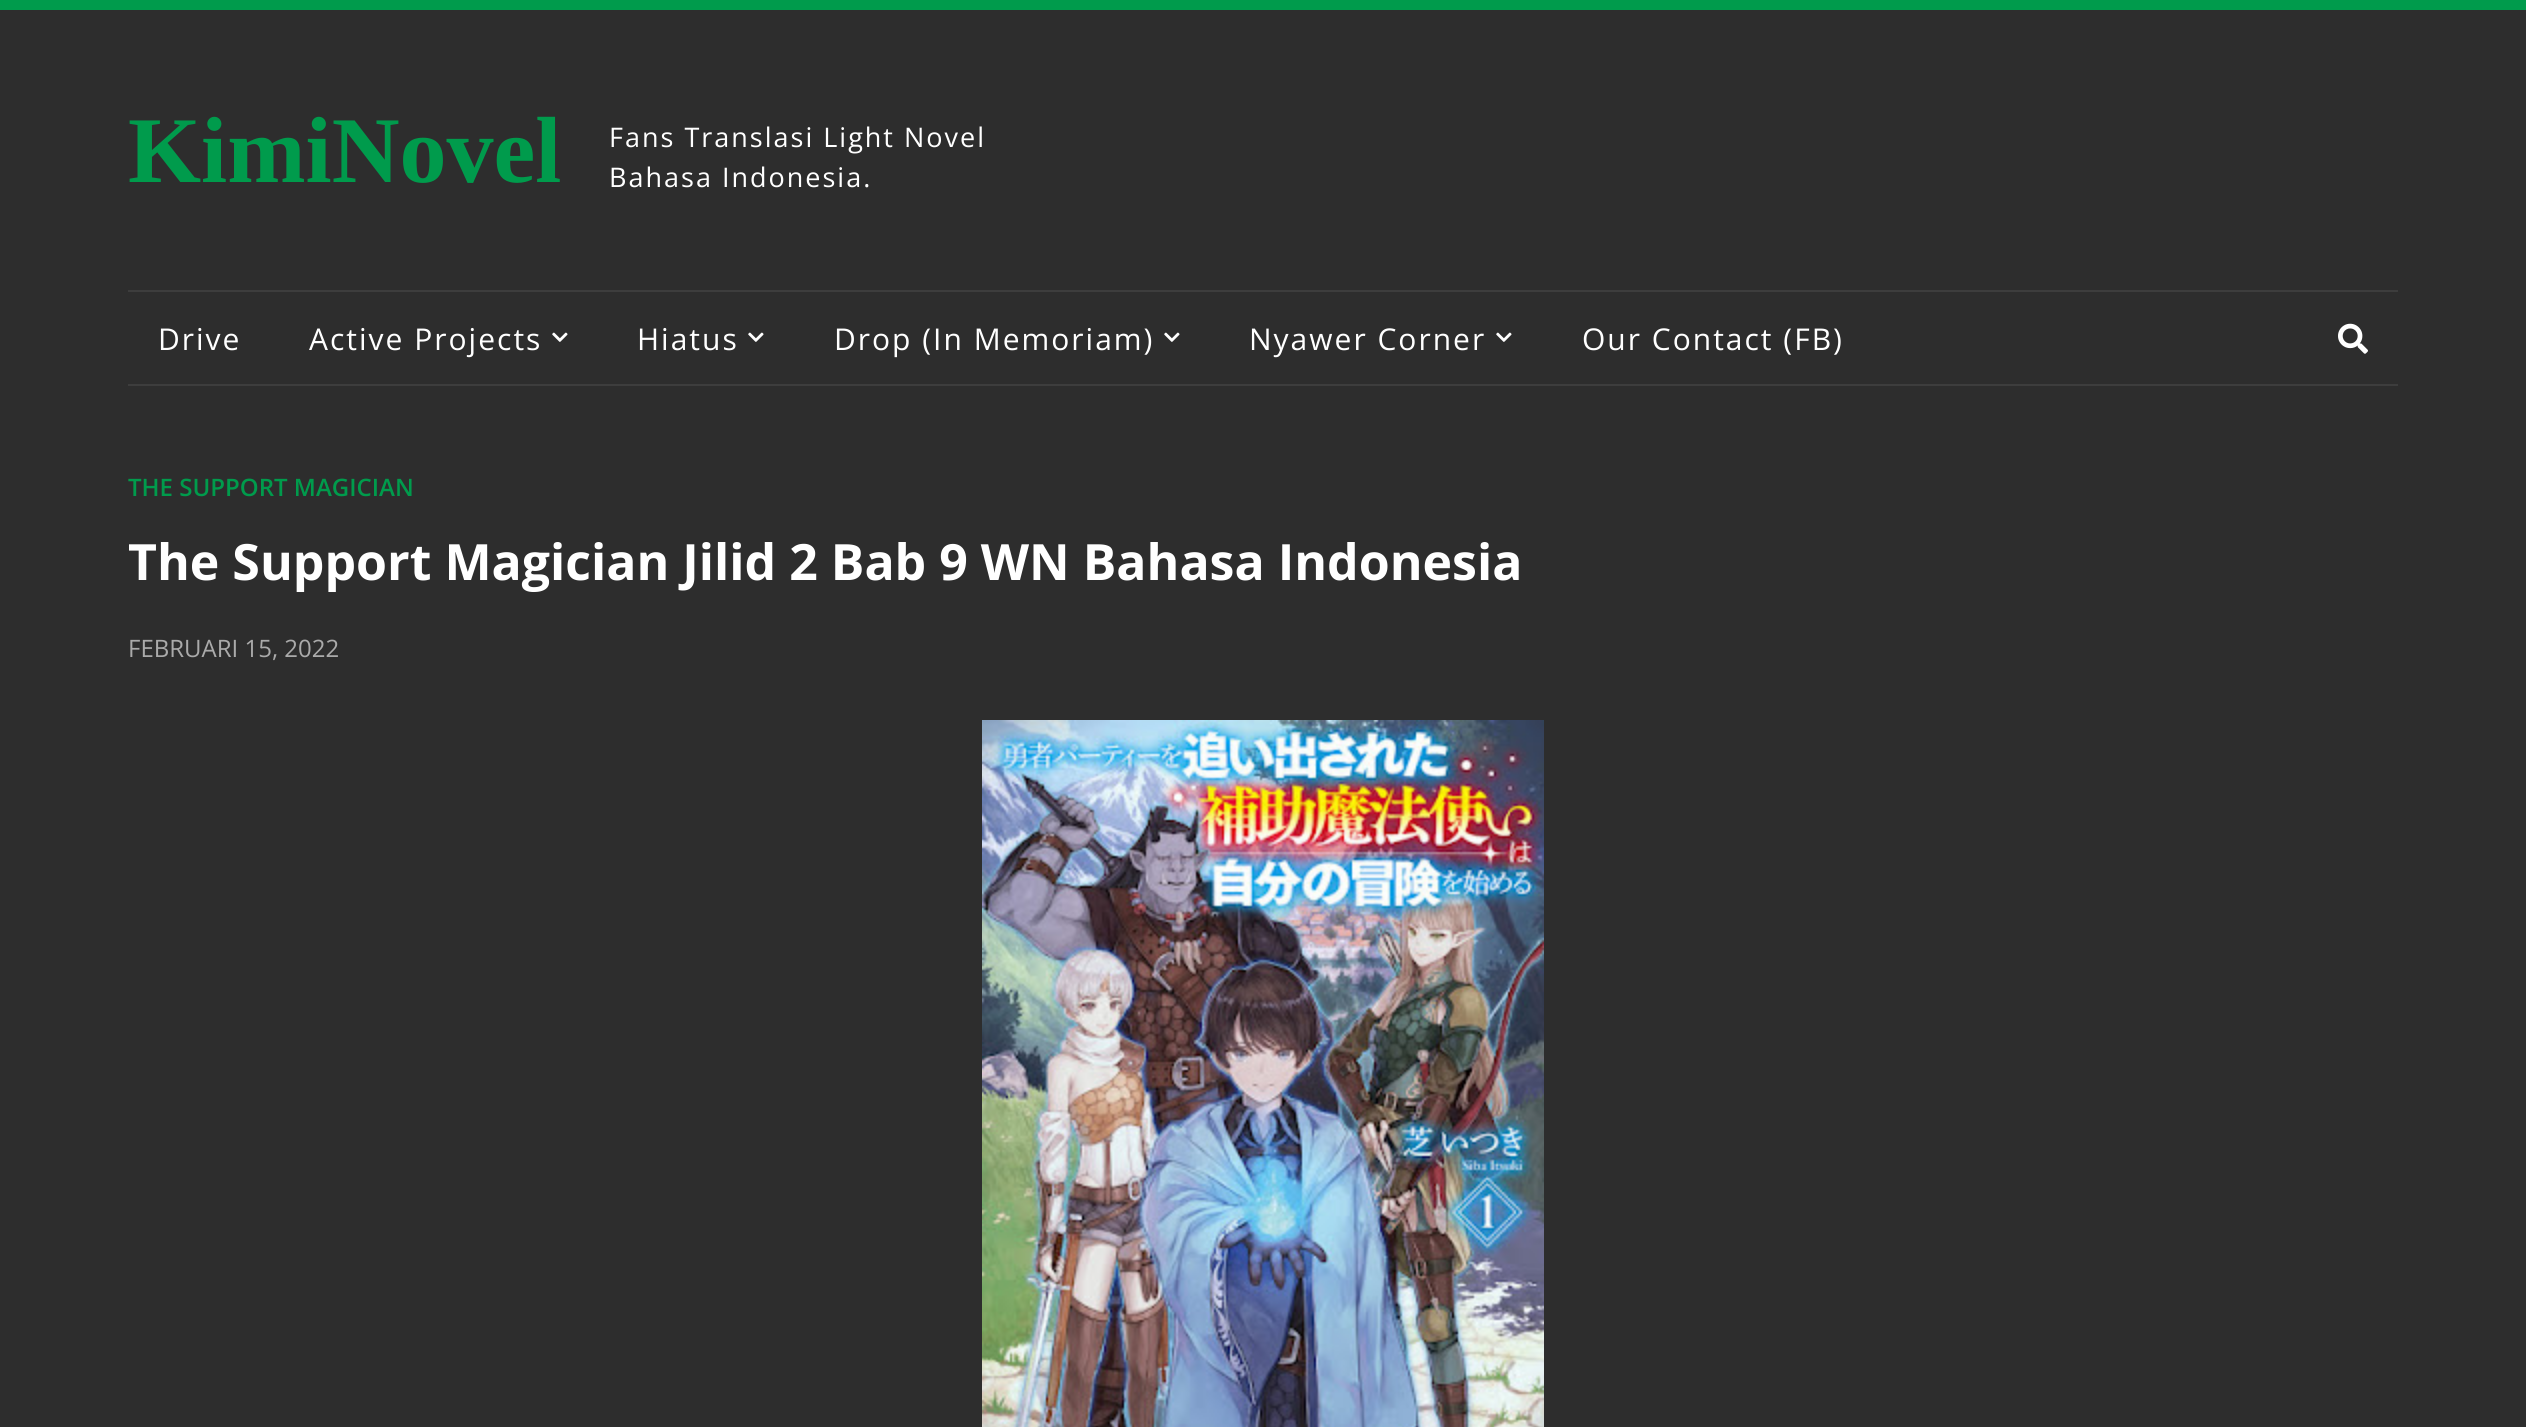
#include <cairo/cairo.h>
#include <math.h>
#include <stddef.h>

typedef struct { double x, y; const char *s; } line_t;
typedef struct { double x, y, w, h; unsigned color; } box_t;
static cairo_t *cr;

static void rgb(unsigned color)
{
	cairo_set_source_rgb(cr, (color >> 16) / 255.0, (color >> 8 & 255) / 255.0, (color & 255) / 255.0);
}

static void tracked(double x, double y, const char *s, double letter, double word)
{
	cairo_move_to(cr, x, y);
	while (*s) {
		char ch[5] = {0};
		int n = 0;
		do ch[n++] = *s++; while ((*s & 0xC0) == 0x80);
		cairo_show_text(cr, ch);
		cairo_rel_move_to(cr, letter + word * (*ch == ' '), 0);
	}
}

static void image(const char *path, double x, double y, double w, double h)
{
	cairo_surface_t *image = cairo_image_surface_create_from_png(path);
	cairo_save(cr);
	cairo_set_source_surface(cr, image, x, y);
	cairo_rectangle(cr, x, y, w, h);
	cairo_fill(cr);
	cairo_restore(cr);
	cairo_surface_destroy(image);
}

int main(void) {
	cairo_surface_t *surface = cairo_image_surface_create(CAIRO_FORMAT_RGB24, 2526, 1427);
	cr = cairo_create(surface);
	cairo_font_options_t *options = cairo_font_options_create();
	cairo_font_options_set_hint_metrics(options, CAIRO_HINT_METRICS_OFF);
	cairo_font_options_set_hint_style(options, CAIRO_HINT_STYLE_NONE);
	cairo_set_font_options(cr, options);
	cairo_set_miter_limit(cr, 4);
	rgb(0x2d2d2d);
	cairo_paint(cr);
	{
		static const box_t items[] = {
			{0, 0, 2526, 10, 0x009b4c},
			{128, 290, 2270, 2, 0x3d3d3d},
			{128, 384, 2270, 2, 0x3d3d3d},
		};
		for (size_t i = 0; i < sizeof items / sizeof *items; i++) {
			rgb(items[i].color);
			cairo_rectangle(cr, items[i].x, items[i].y, items[i].w, items[i].h);
			cairo_fill(cr);
		}
	}
	image("img/1.png", 552, 332, 16, 10);
	image("img/1.png", 748, 332, 16, 10);
	image("img/1.png", 1164, 332, 16, 10);
	image("img/1.png", 1496, 332, 16, 10);
	image("img/2.png", 2338, 323, 30, 31);
	image("img/3.png", 982, 720, 562, 707);
	cairo_select_font_face(cr, "Liberation Serif", CAIRO_FONT_SLANT_NORMAL, CAIRO_FONT_WEIGHT_BOLD);
	cairo_set_font_size(cr, 94);
	rgb(0x009b4c);
	cairo_move_to(cr, 128, 182);
	cairo_show_text(cr, "KimiNovel");
	cairo_select_font_face(cr, "Open Sans", CAIRO_FONT_SLANT_NORMAL, CAIRO_FONT_WEIGHT_NORMAL);
	cairo_set_font_size(cr, 27);
	rgb(0xffffff);
	tracked(609, 147, "Fans Translasi Light Novel", 2, 0);
	tracked(609, 187, "Bahasa Indonesia.", 2, 0);
	cairo_set_font_size(cr, 30);
	{
		static const line_t items[] = {
			{158, 350, "Drive"},
			{309, 350, "Active Projects"},
			{637, 350, "Hiatus"},
			{834, 350, "Drop (In Memoriam)"},
			{1249, 350, "Nyawer Corner"},
			{1582, 350, "Our Contact (FB)"},
		};
		for (size_t i = 0; i < sizeof items / sizeof *items; i++) {
			tracked(items[i].x, items[i].y, items[i].s, 2, 0);
		}
	}
	cairo_select_font_face(cr, "Open Sans SemiBold", CAIRO_FONT_SLANT_NORMAL, CAIRO_FONT_WEIGHT_NORMAL);
	cairo_set_font_size(cr, 24);
	rgb(0x009b4c);
	cairo_move_to(cr, 128, 496);
	cairo_show_text(cr, "THE SUPPORT MAGICIAN");
	cairo_select_font_face(cr, "Open Sans", CAIRO_FONT_SLANT_NORMAL, CAIRO_FONT_WEIGHT_BOLD);
	cairo_set_font_size(cr, 50);
	rgb(0xffffff);
	cairo_move_to(cr, 128, 580);
	cairo_show_text(cr, "The Support Magician Jilid 2 Bab 9 WN Bahasa Indonesia");
	cairo_select_font_face(cr, "Open Sans", CAIRO_FONT_SLANT_NORMAL, CAIRO_FONT_WEIGHT_NORMAL);
	cairo_set_font_size(cr, 24);
	rgb(0xaaaaaa);
	cairo_move_to(cr, 128, 657);
	cairo_show_text(cr, "FEBRUARI 15, 2022");
	cairo_surface_write_to_png(surface, "page.png");
	cairo_font_options_destroy(options);
	cairo_destroy(cr);
	cairo_surface_destroy(surface);
	return 0;
}
